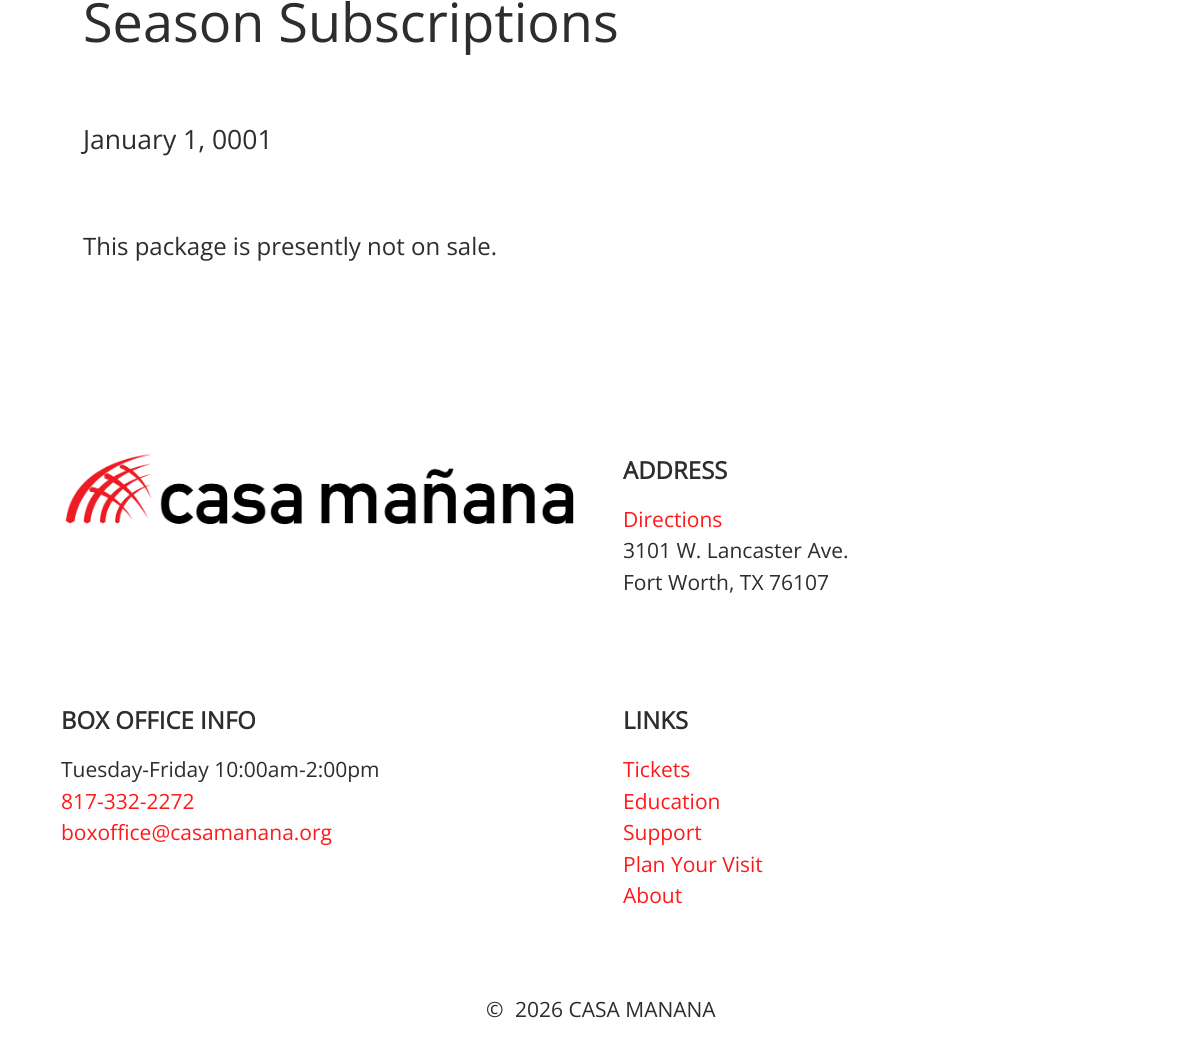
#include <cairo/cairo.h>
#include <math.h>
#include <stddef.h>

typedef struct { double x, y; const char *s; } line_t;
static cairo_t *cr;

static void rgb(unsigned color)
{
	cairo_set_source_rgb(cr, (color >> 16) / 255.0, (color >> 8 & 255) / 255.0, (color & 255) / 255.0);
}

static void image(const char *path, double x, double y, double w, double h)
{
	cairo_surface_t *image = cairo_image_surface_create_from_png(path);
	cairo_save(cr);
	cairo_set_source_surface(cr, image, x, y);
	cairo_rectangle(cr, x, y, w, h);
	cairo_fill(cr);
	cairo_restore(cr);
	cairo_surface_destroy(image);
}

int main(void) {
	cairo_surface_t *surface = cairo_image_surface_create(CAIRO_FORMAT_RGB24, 1201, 1040);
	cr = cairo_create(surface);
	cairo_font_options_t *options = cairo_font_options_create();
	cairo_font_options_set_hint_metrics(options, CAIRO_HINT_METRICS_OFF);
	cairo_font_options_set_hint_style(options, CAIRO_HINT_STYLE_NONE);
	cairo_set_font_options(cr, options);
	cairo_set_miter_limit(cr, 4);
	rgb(0xffffff);
	cairo_paint(cr);
	image("img/1.png", 65, 453, 509, 72);
	cairo_select_font_face(cr, "Open Sans", CAIRO_FONT_SLANT_NORMAL, CAIRO_FONT_WEIGHT_NORMAL);
	cairo_set_font_size(cr, 54);
	rgb(0x2d2d2d);
	cairo_move_to(cr, 83, 42);
	cairo_show_text(cr, "Season Subscriptions");
	cairo_set_font_size(cr, 26.5);
	cairo_move_to(cr, 83, 149);
	cairo_show_text(cr, "January 1, 0001");
	cairo_set_font_size(cr, 24);
	cairo_move_to(cr, 83, 255);
	cairo_show_text(cr, "This package is presently not on sale.");
	cairo_select_font_face(cr, "Open Sans", CAIRO_FONT_SLANT_NORMAL, CAIRO_FONT_WEIGHT_BOLD);
	cairo_move_to(cr, 623, 479);
	cairo_show_text(cr, "ADDRESS");
	cairo_select_font_face(cr, "Open Sans", CAIRO_FONT_SLANT_NORMAL, CAIRO_FONT_WEIGHT_NORMAL);
	cairo_set_font_size(cr, 21);
	rgb(0xff1a1a);
	cairo_move_to(cr, 623, 527);
	cairo_show_text(cr, "Directions");
	rgb(0x2d2d2d);
	cairo_move_to(cr, 623, 558);
	cairo_show_text(cr, "3101 W. Lancaster Ave.");
	cairo_move_to(cr, 623, 590);
	cairo_show_text(cr, "Fort Worth, TX 76107");
	cairo_select_font_face(cr, "Open Sans", CAIRO_FONT_SLANT_NORMAL, CAIRO_FONT_WEIGHT_BOLD);
	cairo_set_font_size(cr, 24);
	cairo_move_to(cr, 61, 729);
	cairo_show_text(cr, "BOX OFFICE INFO");
	cairo_select_font_face(cr, "Open Sans", CAIRO_FONT_SLANT_NORMAL, CAIRO_FONT_WEIGHT_NORMAL);
	cairo_set_font_size(cr, 21);
	cairo_move_to(cr, 61, 777);
	cairo_show_text(cr, "Tuesday-Friday 10:00am-2:00pm");
	rgb(0xff1a1a);
	cairo_move_to(cr, 61, 809);
	cairo_show_text(cr, "817-332-2272");
	cairo_move_to(cr, 61, 840);
	cairo_show_text(cr, "boxoffice@casamanana.org");
	cairo_select_font_face(cr, "Open Sans", CAIRO_FONT_SLANT_NORMAL, CAIRO_FONT_WEIGHT_BOLD);
	cairo_set_font_size(cr, 24);
	rgb(0x2d2d2d);
	cairo_move_to(cr, 623, 729);
	cairo_show_text(cr, "LINKS");
	cairo_select_font_face(cr, "Open Sans", CAIRO_FONT_SLANT_NORMAL, CAIRO_FONT_WEIGHT_NORMAL);
	cairo_set_font_size(cr, 21);
	rgb(0xff1a1a);
	{
		static const line_t items[] = {
			{623, 777, "Tickets"},
			{623, 809, "Education"},
			{623, 840, "Support"},
			{623, 872, "Plan Your Visit"},
			{623, 903, "About"},
		};
		for (size_t i = 0; i < sizeof items / sizeof *items; i++) {
			cairo_move_to(cr, items[i].x, items[i].y);
			cairo_show_text(cr, items[i].s);
		}
	}
	rgb(0x2d2d2d);
	cairo_move_to(cr, 486, 1017);
	cairo_show_text(cr, "©");
	cairo_move_to(cr, 515, 1017);
	cairo_show_text(cr, "2026 CASA MANANA");
	cairo_surface_write_to_png(surface, "page.png");
	cairo_font_options_destroy(options);
	cairo_destroy(cr);
	cairo_surface_destroy(surface);
	return 0;
}
